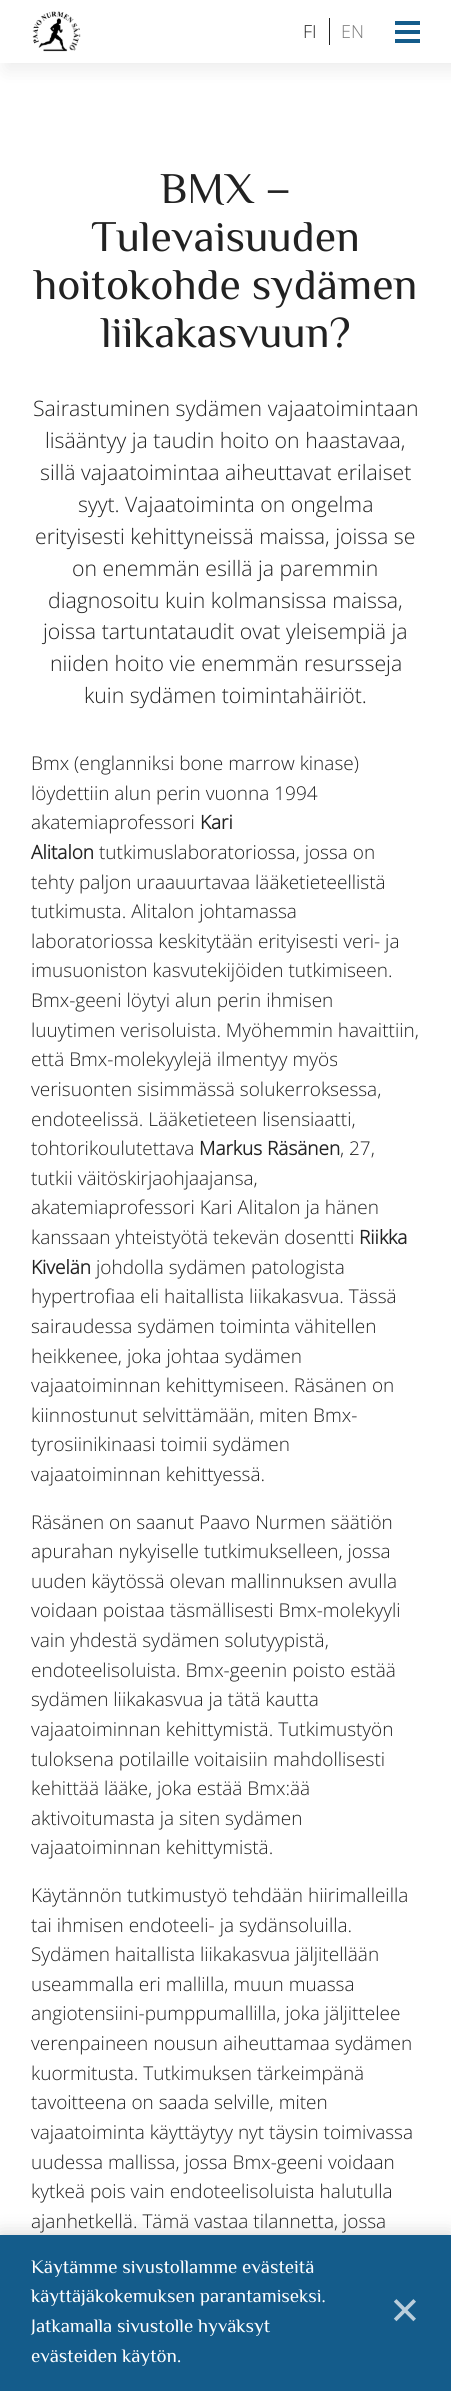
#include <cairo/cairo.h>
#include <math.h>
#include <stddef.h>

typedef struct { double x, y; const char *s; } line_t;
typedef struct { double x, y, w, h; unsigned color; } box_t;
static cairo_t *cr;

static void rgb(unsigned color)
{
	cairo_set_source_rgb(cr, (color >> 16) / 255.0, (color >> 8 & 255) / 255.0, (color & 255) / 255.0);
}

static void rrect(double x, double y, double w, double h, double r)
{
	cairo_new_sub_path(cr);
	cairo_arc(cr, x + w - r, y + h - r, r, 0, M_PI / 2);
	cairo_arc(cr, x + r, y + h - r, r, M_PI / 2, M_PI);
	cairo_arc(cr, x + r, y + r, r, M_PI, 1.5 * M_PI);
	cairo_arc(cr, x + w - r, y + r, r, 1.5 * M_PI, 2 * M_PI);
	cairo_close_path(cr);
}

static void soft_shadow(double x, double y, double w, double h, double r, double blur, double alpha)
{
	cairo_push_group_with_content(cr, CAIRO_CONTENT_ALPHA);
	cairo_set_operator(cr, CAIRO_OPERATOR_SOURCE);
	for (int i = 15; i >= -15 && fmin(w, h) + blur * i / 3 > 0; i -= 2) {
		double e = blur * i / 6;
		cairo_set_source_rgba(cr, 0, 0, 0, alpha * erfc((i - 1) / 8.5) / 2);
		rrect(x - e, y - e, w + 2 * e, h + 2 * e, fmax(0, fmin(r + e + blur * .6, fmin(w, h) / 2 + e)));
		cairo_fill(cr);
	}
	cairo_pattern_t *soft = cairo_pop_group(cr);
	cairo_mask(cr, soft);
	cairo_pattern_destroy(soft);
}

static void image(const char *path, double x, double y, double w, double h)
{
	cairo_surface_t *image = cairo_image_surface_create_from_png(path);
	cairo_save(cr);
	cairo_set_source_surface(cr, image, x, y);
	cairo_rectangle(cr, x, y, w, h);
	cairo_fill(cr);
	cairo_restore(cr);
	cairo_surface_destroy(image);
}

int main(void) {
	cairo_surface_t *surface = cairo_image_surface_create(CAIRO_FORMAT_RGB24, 451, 2391);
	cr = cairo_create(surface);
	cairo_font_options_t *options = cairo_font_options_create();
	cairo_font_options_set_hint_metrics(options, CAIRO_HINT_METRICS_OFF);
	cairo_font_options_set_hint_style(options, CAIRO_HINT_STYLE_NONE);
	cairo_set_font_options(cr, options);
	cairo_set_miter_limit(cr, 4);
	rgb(0xffffff);
	cairo_paint(cr);
	rgb(0x000000);
	soft_shadow(6, 6, 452, 63, 0, 9.5, 0.08);
	rgb(0xffffff);
	cairo_rectangle(cr, 0, 0, 451, 63);
	cairo_fill(cr);
	image("img/1.png", 32, 11, 49, 41);
	{
		static const box_t items[] = {
			{329, 18, 1, 27, 0x222222},
			{395, 21, 25, 4, 0x145c8b},
			{395, 30, 25, 4, 0x145c8b},
			{395, 39, 25, 4, 0x145c8b},
		};
		for (size_t i = 0; i < sizeof items / sizeof *items; i++) {
			rgb(items[i].color);
			cairo_rectangle(cr, items[i].x, items[i].y, items[i].w, items[i].h);
			cairo_fill(cr);
		}
	}
	rgb(0x000000);
	soft_shadow(0, 2235, 451, 156, 0, 9.5, 0.2);
	rgb(0x145c8b);
	cairo_rectangle(cr, 0, 2235, 451, 156);
	cairo_fill(cr);
	cairo_select_font_face(cr, "Open Sans Light", CAIRO_FONT_SLANT_NORMAL, CAIRO_FONT_WEIGHT_NORMAL);
	cairo_set_font_size(cr, 18);
	rgb(0x222222);
	cairo_move_to(cr, 303, 38);
	cairo_show_text(cr, "FI");
	rgb(0x7a7a7a);
	cairo_move_to(cr, 341, 38);
	cairo_show_text(cr, "EN");
	cairo_select_font_face(cr, "El Messiri", CAIRO_FONT_SLANT_NORMAL, CAIRO_FONT_WEIGHT_NORMAL);
	cairo_set_font_size(cr, 43.75);
	rgb(0x222222);
	{
		static const line_t items[] = {
			{160, 203, "BMX –"},
			{91, 251, "Tulevaisuuden"},
			{34, 299, "hoitokohde sydämen"},
			{101, 347, "liikakasvuun?"},
		};
		for (size_t i = 0; i < sizeof items / sizeof *items; i++) {
			cairo_move_to(cr, items[i].x, items[i].y);
			cairo_show_text(cr, items[i].s);
		}
	}
	cairo_select_font_face(cr, "Open Sans Light", CAIRO_FONT_SLANT_NORMAL, CAIRO_FONT_WEIGHT_NORMAL);
	cairo_set_font_size(cr, 21.25);
	{
		static const line_t items[] = {
			{33, 416, "Sairastuminen sydämen vajaatoimintaan"},
			{45, 448, "lisääntyy ja taudin hoito on haastavaa,"},
			{40, 480, "sillä vajaatoimintaa aiheuttavat erilaiset"},
			{78, 512, "syyt. Vajaatoiminta on ongelma"},
			{35, 544, "erityisesti kehittyneissä maissa, joissa se"},
			{72, 576, "on enemmän esillä ja paremmin"},
			{48, 608, "diagnosoitu kuin kolmansissa maissa,"},
			{43, 639, "joissa tartuntataudit ovat yleisempiä ja"},
			{50, 671, "niiden hoito vie enemmän resursseja"},
			{84, 703, "kuin sydämen toimintahäiriöt."},
		};
		for (size_t i = 0; i < sizeof items / sizeof *items; i++) {
			cairo_move_to(cr, items[i].x, items[i].y);
			cairo_show_text(cr, items[i].s);
		}
	}
	cairo_set_font_size(cr, 19);
	{
		static const line_t items[] = {
			{31, 770, "Bmx (englanniksi bone marrow kinase)"},
			{31, 800, "löydettiin alun perin vuonna 1994"},
			{31, 829, "akatemiaprofessori"},
		};
		for (size_t i = 0; i < sizeof items / sizeof *items; i++) {
			cairo_move_to(cr, items[i].x, items[i].y);
			cairo_show_text(cr, items[i].s);
		}
	}
	cairo_select_font_face(cr, "Open Sans", CAIRO_FONT_SLANT_NORMAL, CAIRO_FONT_WEIGHT_BOLD);
	cairo_move_to(cr, 200, 829);
	cairo_show_text(cr, "Kari");
	cairo_move_to(cr, 31, 859);
	cairo_show_text(cr, "Alitalon");
	cairo_select_font_face(cr, "Open Sans Light", CAIRO_FONT_SLANT_NORMAL, CAIRO_FONT_WEIGHT_NORMAL);
	{
		static const line_t items[] = {
			{99, 859, "tutkimuslaboratoriossa, jossa on"},
			{31, 889, "tehty paljon uraauurtavaa lääketieteellistä"},
			{31, 918, "tutkimusta. Alitalon johtamassa"},
			{31, 948, "laboratoriossa keskitytään erityisesti veri- ja"},
			{31, 977, "imusuoniston kasvutekijöiden tutkimiseen."},
			{31, 1007, "Bmx-geeni löytyi alun perin ihmisen"},
			{31, 1037, "luuytimen verisoluista. Myöhemmin havaittiin,"},
			{31, 1066, "että Bmx-molekyylejä ilmentyy myös"},
			{31, 1096, "verisuonten sisimmässä solukerroksessa,"},
			{31, 1126, "endoteelissä. Lääketieteen lisensiaatti,"},
			{31, 1155, "tohtorikoulutettava"},
		};
		for (size_t i = 0; i < sizeof items / sizeof *items; i++) {
			cairo_move_to(cr, items[i].x, items[i].y);
			cairo_show_text(cr, items[i].s);
		}
	}
	cairo_select_font_face(cr, "Open Sans", CAIRO_FONT_SLANT_NORMAL, CAIRO_FONT_WEIGHT_BOLD);
	cairo_move_to(cr, 199, 1155);
	cairo_show_text(cr, "Markus Räsänen");
	cairo_select_font_face(cr, "Open Sans Light", CAIRO_FONT_SLANT_NORMAL, CAIRO_FONT_WEIGHT_NORMAL);
	{
		static const line_t items[] = {
			{340, 1155, ", 27,"},
			{31, 1185, "tutkii väitöskirjaohjaajansa,"},
			{31, 1214, "akatemiaprofessori Kari Alitalon ja hänen"},
			{31, 1244, "kanssaan yhteistyötä tekevän dosentti"},
		};
		for (size_t i = 0; i < sizeof items / sizeof *items; i++) {
			cairo_move_to(cr, items[i].x, items[i].y);
			cairo_show_text(cr, items[i].s);
		}
	}
	cairo_select_font_face(cr, "Open Sans", CAIRO_FONT_SLANT_NORMAL, CAIRO_FONT_WEIGHT_BOLD);
	cairo_move_to(cr, 359, 1244);
	cairo_show_text(cr, "Riikka");
	cairo_move_to(cr, 31, 1274);
	cairo_show_text(cr, "Kivelän");
	cairo_select_font_face(cr, "Open Sans Light", CAIRO_FONT_SLANT_NORMAL, CAIRO_FONT_WEIGHT_NORMAL);
	{
		static const line_t items[] = {
			{96, 1274, "johdolla sydämen patologista"},
			{31, 1303, "hypertrofiaa eli haitallista liikakasvua. Tässä"},
			{31, 1333, "sairaudessa sydämen toiminta vähitellen"},
			{31, 1363, "heikkenee, joka johtaa sydämen"},
			{31, 1392, "vajaatoiminnan kehittymiseen. Räsänen on"},
			{31, 1422, "kiinnostunut selvittämään, miten Bmx-"},
			{31, 1451, "tyrosiinikinaasi toimii sydämen"},
			{31, 1481, "vajaatoiminnan kehittyessä."},
			{31, 1529, "Räsänen on saanut Paavo Nurmen säätiön"},
			{31, 1558, "apurahan nykyiselle tutkimukselleen, jossa"},
			{31, 1588, "uuden käytössä olevan mallinnuksen avulla"},
			{31, 1617, "voidaan poistaa täsmällisesti Bmx-molekyyli"},
			{31, 1647, "vain yhdestä sydämen solutyypistä,"},
			{31, 1677, "endoteelisoluista. Bmx-geenin poisto estää"},
			{31, 1706, "sydämen liikakasvua ja tätä kautta"},
			{31, 1736, "vajaatoiminnan kehittymistä. Tutkimustyön"},
			{31, 1766, "tuloksena potilaille voitaisiin mahdollisesti"},
			{31, 1795, "kehittää lääke, joka estää Bmx:ää"},
			{31, 1825, "aktivoitumasta ja siten sydämen"},
			{31, 1854, "vajaatoiminnan kehittymistä."},
			{31, 1902, "Käytännön tutkimustyö tehdään hiirimalleilla"},
			{31, 1932, "tai ihmisen endoteeli- ja sydänsoluilla."},
			{31, 1961, "Sydämen haitallista liikakasvua jäljitellään"},
			{31, 1991, "useammalla eri mallilla, muun muassa"},
			{31, 2020, "angiotensiini-pumppumallilla, joka jäljittelee"},
			{31, 2050, "verenpaineen nousun aiheuttamaa sydämen"},
			{31, 2080, "kuormitusta. Tutkimuksen tärkeimpänä"},
			{31, 2109, "tavoitteena on saada selville, miten"},
			{31, 2139, "vajaatoiminta käyttäytyy nyt täysin toimivassa"},
			{31, 2169, "uudessa mallissa, jossa Bmx-geeni voidaan"},
			{31, 2198, "kytkeä pois vain endoteelisoluista halutulla"},
			{31, 2228, "ajanhetkellä. Tämä vastaa tilannetta, jossa"},
		};
		for (size_t i = 0; i < sizeof items / sizeof *items; i++) {
			cairo_move_to(cr, items[i].x, items[i].y);
			cairo_show_text(cr, items[i].s);
		}
	}
	cairo_select_font_face(cr, "El Messiri", CAIRO_FONT_SLANT_NORMAL, CAIRO_FONT_WEIGHT_NORMAL);
	rgb(0xffffff);
	{
		static const line_t items[] = {
			{31, 2273, "Käytämme sivustollamme evästeitä"},
			{31, 2302, "käyttäjäkokemuksen parantamiseksi."},
			{31, 2332, "Jatkamalla sivustolle hyväksyt"},
			{31, 2362, "evästeiden käytön."},
		};
		for (size_t i = 0; i < sizeof items / sizeof *items; i++) {
			cairo_move_to(cr, items[i].x, items[i].y);
			cairo_show_text(cr, items[i].s);
		}
	}
	cairo_select_font_face(cr, "DejaVu Sans", CAIRO_FONT_SLANT_NORMAL, CAIRO_FONT_WEIGHT_NORMAL);
	cairo_set_font_size(cr, 38);
	rgb(0xb9cedc);
	cairo_move_to(cr, 389, 2324);
	cairo_show_text(cr, "✕");
	cairo_surface_write_to_png(surface, "page.png");
	cairo_font_options_destroy(options);
	cairo_destroy(cr);
	cairo_surface_destroy(surface);
	return 0;
}
